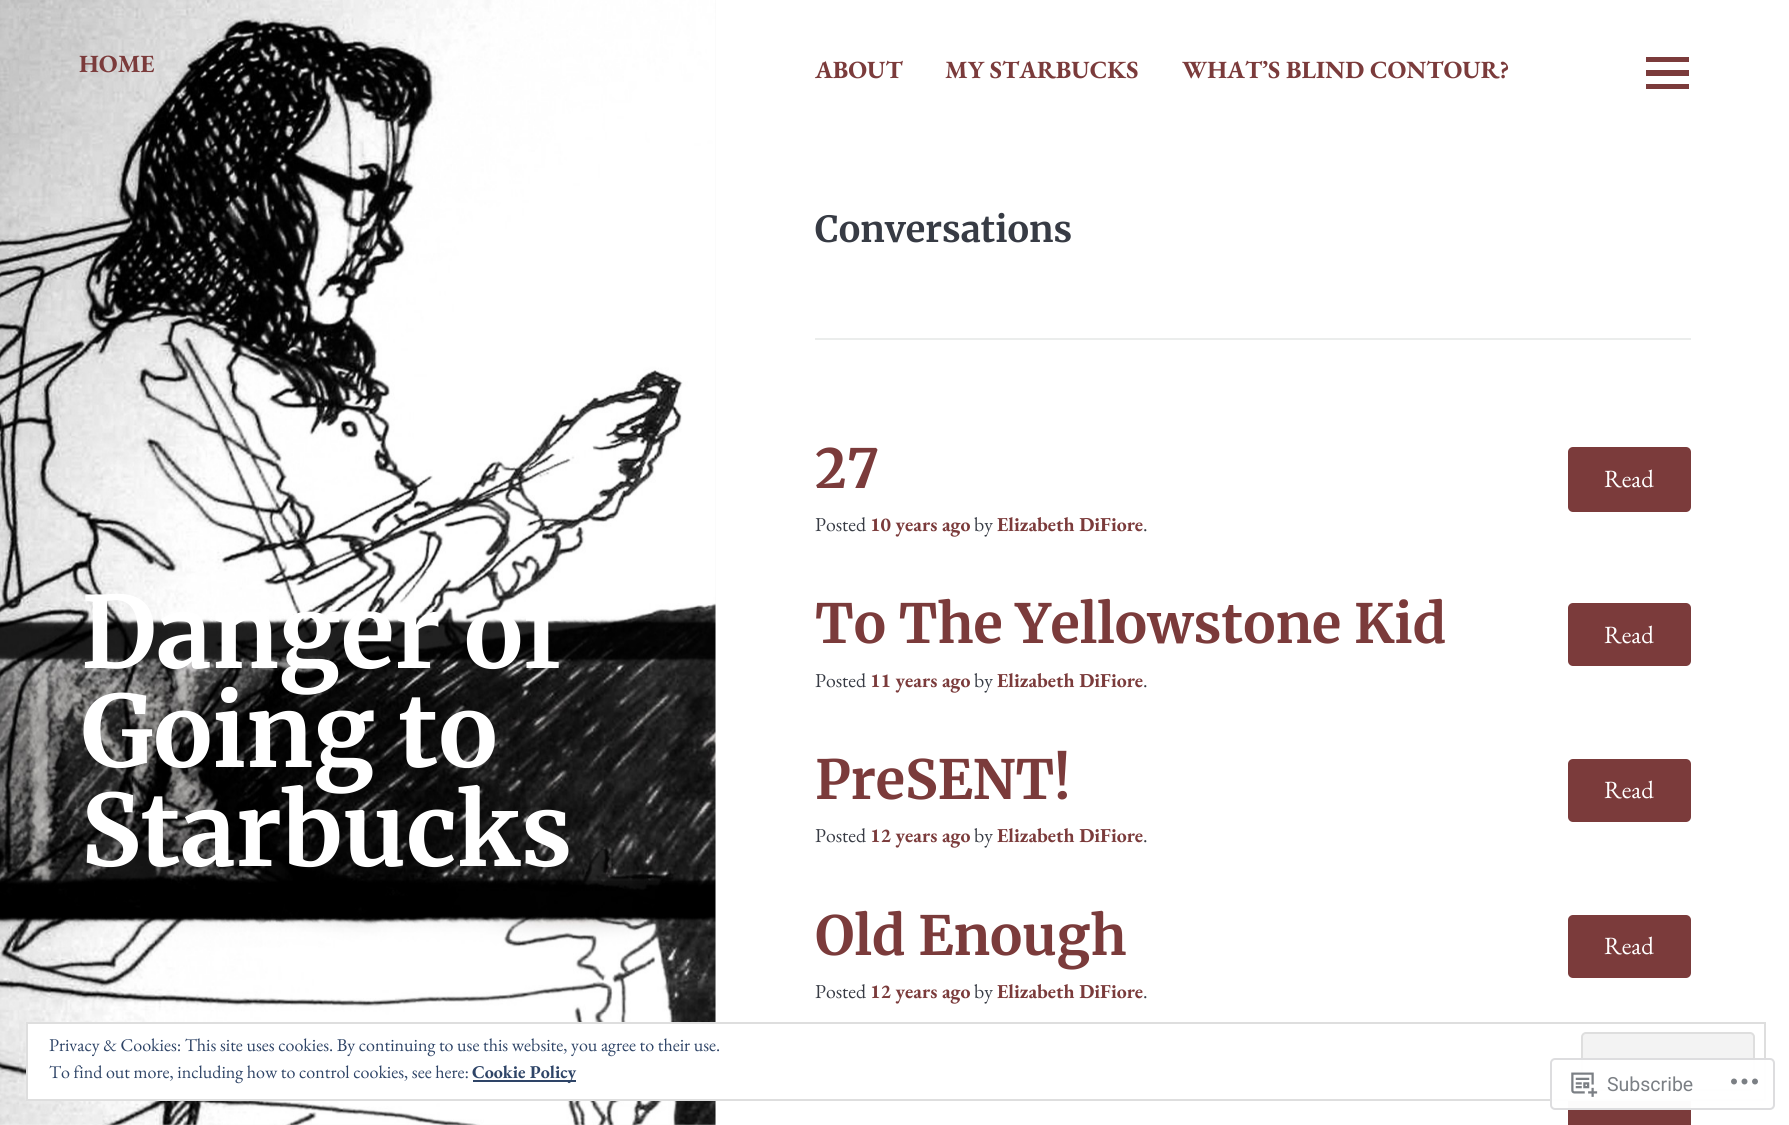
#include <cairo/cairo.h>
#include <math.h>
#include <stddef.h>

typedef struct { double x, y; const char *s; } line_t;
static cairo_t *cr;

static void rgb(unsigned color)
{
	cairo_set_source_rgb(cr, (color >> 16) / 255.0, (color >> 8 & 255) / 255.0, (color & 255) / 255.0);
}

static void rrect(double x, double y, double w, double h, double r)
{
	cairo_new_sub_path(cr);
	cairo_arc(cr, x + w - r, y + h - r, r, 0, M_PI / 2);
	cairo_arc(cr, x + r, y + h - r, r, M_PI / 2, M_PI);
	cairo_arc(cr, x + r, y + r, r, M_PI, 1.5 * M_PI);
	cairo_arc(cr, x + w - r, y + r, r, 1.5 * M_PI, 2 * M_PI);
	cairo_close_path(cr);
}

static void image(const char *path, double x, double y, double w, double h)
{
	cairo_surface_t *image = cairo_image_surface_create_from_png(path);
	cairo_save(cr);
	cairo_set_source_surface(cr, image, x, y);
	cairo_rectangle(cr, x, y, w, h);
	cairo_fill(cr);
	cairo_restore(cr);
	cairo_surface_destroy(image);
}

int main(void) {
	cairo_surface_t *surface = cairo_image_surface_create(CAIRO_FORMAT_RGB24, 1789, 1125);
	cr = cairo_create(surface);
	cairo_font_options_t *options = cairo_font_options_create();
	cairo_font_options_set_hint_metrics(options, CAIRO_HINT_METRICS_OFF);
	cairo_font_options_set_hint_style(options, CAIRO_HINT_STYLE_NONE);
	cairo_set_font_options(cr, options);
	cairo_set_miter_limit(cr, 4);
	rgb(0xffffff);
	cairo_paint(cr);
	rgb(0x7b3b3b);
	cairo_new_path(cr);
	cairo_move_to(cr, 1646, 89);
	cairo_line_to(cr, 1646, 84);
	cairo_line_to(cr, 1689, 84);
	cairo_line_to(cr, 1689, 89);
	cairo_close_path(cr);
	cairo_move_to(cr, 1646, 57);
	cairo_line_to(cr, 1689, 57);
	cairo_line_to(cr, 1689, 62);
	cairo_line_to(cr, 1646, 62);
	cairo_close_path(cr);
	cairo_move_to(cr, 1646, 76);
	cairo_line_to(cr, 1646, 70);
	cairo_line_to(cr, 1689, 70);
	cairo_line_to(cr, 1689, 76);
	cairo_close_path(cr);
	cairo_fill(cr);
	rgb(0xebedec);
	cairo_rectangle(cr, 815, 338, 876, 2);
	cairo_fill(cr);
	rgb(0x7b3b3b);
	rrect(1568, 447, 123, 65, 5);
	cairo_fill(cr);
	rrect(1568, 603, 123, 63, 5);
	cairo_fill(cr);
	rrect(1568, 759, 123, 63, 5);
	cairo_fill(cr);
	rrect(1568, 915, 123, 63, 5);
	cairo_fill(cr);
	cairo_rectangle(cr, 1568, 1101, 123, 24);
	cairo_fill(cr);
	rgb(0xf6f7f6);
	cairo_rectangle(cr, 0, 0, 716, 1125);
	cairo_fill(cr);
	image("img/1.png", 0, 0, 716, 1125);
	rgb(0xffffff);
	cairo_rectangle(cr, 28, 1024, 688, 75);
	cairo_fill(cr);
	cairo_rectangle(cr, 27, 1023, 1738, 77);
	rgb(0xdedede);
	cairo_stroke(cr);
	rgb(0xf3f3f3);
	rrect(1582, 1033, 172, 57, 4);
	cairo_fill_preserve(cr);
	rgb(0xdedede);
	cairo_stroke(cr);
	rgb(0x2e4467);
	cairo_rectangle(cr, 473, 1080, 103, 2);
	cairo_fill(cr);
	cairo_set_source_rgba(cr, 1, 1, 1, 0.98);
	rrect(1550, 1058, 225, 52, 5);
	cairo_fill(cr);
	rrect(1551, 1059, 223, 50, 4);
	cairo_set_source_rgba(cr, 0.863, 0.863, 0.871, 0.98);
	cairo_stroke(cr);
	image("img/2.png", 1571, 1072, 27, 25);
	image("img/3.png", 1731, 1078, 27, 7);
	cairo_select_font_face(cr, "EB Garamond", CAIRO_FONT_SLANT_NORMAL, CAIRO_FONT_WEIGHT_BOLD);
	cairo_set_font_size(cr, 24.75);
	rgb(0x7b3b3b);
	{
		static const line_t items[] = {
			{79, 72, "HOME"},
			{815, 78, "ABOUT"},
			{945, 78, "MY STARBUCKS"},
			{1182, 78, "WHAT’S BLIND CONTOUR?"},
		};
		for (size_t i = 0; i < sizeof items / sizeof *items; i++) {
			cairo_move_to(cr, items[i].x, items[i].y);
			cairo_show_text(cr, items[i].s);
		}
	}
	cairo_select_font_face(cr, "Merriweather Light", CAIRO_FONT_SLANT_NORMAL, CAIRO_FONT_WEIGHT_NORMAL);
	cairo_set_font_size(cr, 36);
	rgb(0x373b44);
	cairo_move_to(cr, 815, 242);
	cairo_show_text(cr, "Conversations");
	cairo_set_font_size(cr, 54);
	rgb(0x7b3b3b);
	cairo_move_to(cr, 815, 488);
	cairo_show_text(cr, "27");
	cairo_select_font_face(cr, "EB Garamond", CAIRO_FONT_SLANT_NORMAL, CAIRO_FONT_WEIGHT_NORMAL);
	cairo_set_font_size(cr, 24.75);
	rgb(0xffffff);
	cairo_move_to(cr, 1604, 487);
	cairo_show_text(cr, "Read");
	cairo_set_font_size(cr, 19.75);
	rgb(0x373b44);
	cairo_move_to(cr, 815, 531);
	cairo_show_text(cr, "Posted");
	cairo_select_font_face(cr, "EB Garamond", CAIRO_FONT_SLANT_NORMAL, CAIRO_FONT_WEIGHT_BOLD);
	rgb(0x7b3b3b);
	cairo_move_to(cr, 870, 531);
	cairo_show_text(cr, "10 years ago");
	cairo_select_font_face(cr, "EB Garamond", CAIRO_FONT_SLANT_NORMAL, CAIRO_FONT_WEIGHT_NORMAL);
	rgb(0x373b44);
	cairo_move_to(cr, 974, 531);
	cairo_show_text(cr, "by");
	cairo_select_font_face(cr, "EB Garamond", CAIRO_FONT_SLANT_NORMAL, CAIRO_FONT_WEIGHT_BOLD);
	rgb(0x7b3b3b);
	cairo_move_to(cr, 997, 531);
	cairo_show_text(cr, "Elizabeth DiFiore");
	cairo_select_font_face(cr, "EB Garamond", CAIRO_FONT_SLANT_NORMAL, CAIRO_FONT_WEIGHT_NORMAL);
	rgb(0x373b44);
	cairo_move_to(cr, 1143, 531);
	cairo_show_text(cr, ".");
	cairo_select_font_face(cr, "Merriweather Light", CAIRO_FONT_SLANT_NORMAL, CAIRO_FONT_WEIGHT_NORMAL);
	cairo_set_font_size(cr, 54);
	rgb(0x7b3b3b);
	cairo_move_to(cr, 815, 643);
	cairo_show_text(cr, "To The Yellowstone Kid");
	cairo_select_font_face(cr, "EB Garamond", CAIRO_FONT_SLANT_NORMAL, CAIRO_FONT_WEIGHT_NORMAL);
	cairo_set_font_size(cr, 24.75);
	rgb(0xffffff);
	cairo_move_to(cr, 1604, 643);
	cairo_show_text(cr, "Read");
	cairo_set_font_size(cr, 19.75);
	rgb(0x373b44);
	cairo_move_to(cr, 815, 687);
	cairo_show_text(cr, "Posted");
	cairo_select_font_face(cr, "EB Garamond", CAIRO_FONT_SLANT_NORMAL, CAIRO_FONT_WEIGHT_BOLD);
	rgb(0x7b3b3b);
	cairo_move_to(cr, 870, 687);
	cairo_show_text(cr, "11 years ago");
	cairo_select_font_face(cr, "EB Garamond", CAIRO_FONT_SLANT_NORMAL, CAIRO_FONT_WEIGHT_NORMAL);
	rgb(0x373b44);
	cairo_move_to(cr, 974, 687);
	cairo_show_text(cr, "by");
	cairo_select_font_face(cr, "EB Garamond", CAIRO_FONT_SLANT_NORMAL, CAIRO_FONT_WEIGHT_BOLD);
	rgb(0x7b3b3b);
	cairo_move_to(cr, 997, 687);
	cairo_show_text(cr, "Elizabeth DiFiore");
	cairo_select_font_face(cr, "EB Garamond", CAIRO_FONT_SLANT_NORMAL, CAIRO_FONT_WEIGHT_NORMAL);
	rgb(0x373b44);
	cairo_move_to(cr, 1143, 687);
	cairo_show_text(cr, ".");
	cairo_select_font_face(cr, "Merriweather Light", CAIRO_FONT_SLANT_NORMAL, CAIRO_FONT_WEIGHT_NORMAL);
	cairo_set_font_size(cr, 54);
	rgb(0x7b3b3b);
	cairo_move_to(cr, 815, 799);
	cairo_show_text(cr, "PreSENT!");
	cairo_select_font_face(cr, "EB Garamond", CAIRO_FONT_SLANT_NORMAL, CAIRO_FONT_WEIGHT_NORMAL);
	cairo_set_font_size(cr, 24.75);
	rgb(0xffffff);
	cairo_move_to(cr, 1604, 798);
	cairo_show_text(cr, "Read");
	cairo_set_font_size(cr, 19.75);
	rgb(0x373b44);
	cairo_move_to(cr, 815, 842);
	cairo_show_text(cr, "Posted");
	cairo_select_font_face(cr, "EB Garamond", CAIRO_FONT_SLANT_NORMAL, CAIRO_FONT_WEIGHT_BOLD);
	rgb(0x7b3b3b);
	cairo_move_to(cr, 870, 842);
	cairo_show_text(cr, "12 years ago");
	cairo_select_font_face(cr, "EB Garamond", CAIRO_FONT_SLANT_NORMAL, CAIRO_FONT_WEIGHT_NORMAL);
	rgb(0x373b44);
	cairo_move_to(cr, 974, 842);
	cairo_show_text(cr, "by");
	cairo_select_font_face(cr, "EB Garamond", CAIRO_FONT_SLANT_NORMAL, CAIRO_FONT_WEIGHT_BOLD);
	rgb(0x7b3b3b);
	cairo_move_to(cr, 997, 842);
	cairo_show_text(cr, "Elizabeth DiFiore");
	cairo_select_font_face(cr, "EB Garamond", CAIRO_FONT_SLANT_NORMAL, CAIRO_FONT_WEIGHT_NORMAL);
	rgb(0x373b44);
	cairo_move_to(cr, 1143, 842);
	cairo_show_text(cr, ".");
	cairo_select_font_face(cr, "Merriweather Light", CAIRO_FONT_SLANT_NORMAL, CAIRO_FONT_WEIGHT_NORMAL);
	cairo_set_font_size(cr, 54);
	rgb(0x7b3b3b);
	cairo_move_to(cr, 815, 955);
	cairo_show_text(cr, "Old Enough");
	cairo_select_font_face(cr, "EB Garamond", CAIRO_FONT_SLANT_NORMAL, CAIRO_FONT_WEIGHT_NORMAL);
	cairo_set_font_size(cr, 24.75);
	rgb(0xffffff);
	cairo_move_to(cr, 1604, 954);
	cairo_show_text(cr, "Read");
	cairo_set_font_size(cr, 19.75);
	rgb(0x373b44);
	cairo_move_to(cr, 815, 998);
	cairo_show_text(cr, "Posted");
	cairo_select_font_face(cr, "EB Garamond", CAIRO_FONT_SLANT_NORMAL, CAIRO_FONT_WEIGHT_BOLD);
	rgb(0x7b3b3b);
	cairo_move_to(cr, 870, 998);
	cairo_show_text(cr, "12 years ago");
	cairo_select_font_face(cr, "EB Garamond", CAIRO_FONT_SLANT_NORMAL, CAIRO_FONT_WEIGHT_NORMAL);
	rgb(0x373b44);
	cairo_move_to(cr, 974, 998);
	cairo_show_text(cr, "by");
	cairo_select_font_face(cr, "EB Garamond", CAIRO_FONT_SLANT_NORMAL, CAIRO_FONT_WEIGHT_BOLD);
	rgb(0x7b3b3b);
	cairo_move_to(cr, 997, 998);
	cairo_show_text(cr, "Elizabeth DiFiore");
	cairo_select_font_face(cr, "EB Garamond", CAIRO_FONT_SLANT_NORMAL, CAIRO_FONT_WEIGHT_NORMAL);
	rgb(0x373b44);
	cairo_move_to(cr, 1143, 998);
	cairo_show_text(cr, ".");
	cairo_select_font_face(cr, "Merriweather Light", CAIRO_FONT_SLANT_NORMAL, CAIRO_FONT_WEIGHT_NORMAL);
	cairo_set_font_size(cr, 99);
	rgb(0xffffff);
	{
		static const line_t items[] = {
			{81, 668, "Danger of"},
			{81, 767, "Going to"},
			{81, 866, "Starbucks"},
		};
		for (size_t i = 0; i < sizeof items / sizeof *items; i++) {
			cairo_move_to(cr, items[i].x, items[i].y);
			cairo_show_text(cr, items[i].s);
		}
	}
	cairo_select_font_face(cr, "EB Garamond", CAIRO_FONT_SLANT_NORMAL, CAIRO_FONT_WEIGHT_NORMAL);
	cairo_set_font_size(cr, 18);
	rgb(0x2e4467);
	cairo_move_to(cr, 49, 1051);
	cairo_show_text(cr, "Privacy & Cookies: This site uses cookies. By continuing to use this website, you agree to their use.");
	cairo_move_to(cr, 49, 1078);
	cairo_show_text(cr, "To find out more, including how to control cookies, see here:");
	cairo_select_font_face(cr, "EB Garamond", CAIRO_FONT_SLANT_NORMAL, CAIRO_FONT_WEIGHT_BOLD);
	cairo_move_to(cr, 472, 1078);
	cairo_show_text(cr, "Cookie Policy");
	cairo_select_font_face(cr, "Roboto", CAIRO_FONT_SLANT_NORMAL, CAIRO_FONT_WEIGHT_NORMAL);
	cairo_set_font_size(cr, 19.5);
	rgb(0x7b7f84);
	cairo_move_to(cr, 1607, 1091);
	cairo_show_text(cr, "Subscribe");
	cairo_surface_write_to_png(surface, "page.png");
	cairo_font_options_destroy(options);
	cairo_destroy(cr);
	cairo_surface_destroy(surface);
	return 0;
}
